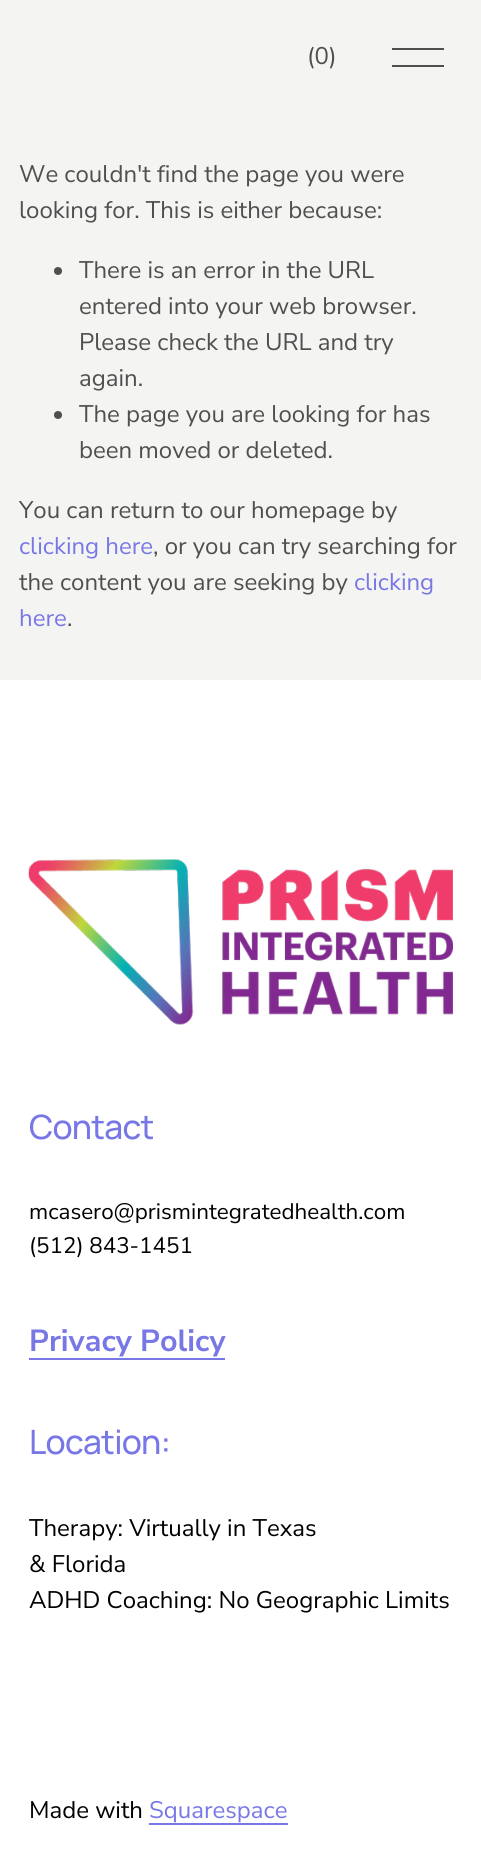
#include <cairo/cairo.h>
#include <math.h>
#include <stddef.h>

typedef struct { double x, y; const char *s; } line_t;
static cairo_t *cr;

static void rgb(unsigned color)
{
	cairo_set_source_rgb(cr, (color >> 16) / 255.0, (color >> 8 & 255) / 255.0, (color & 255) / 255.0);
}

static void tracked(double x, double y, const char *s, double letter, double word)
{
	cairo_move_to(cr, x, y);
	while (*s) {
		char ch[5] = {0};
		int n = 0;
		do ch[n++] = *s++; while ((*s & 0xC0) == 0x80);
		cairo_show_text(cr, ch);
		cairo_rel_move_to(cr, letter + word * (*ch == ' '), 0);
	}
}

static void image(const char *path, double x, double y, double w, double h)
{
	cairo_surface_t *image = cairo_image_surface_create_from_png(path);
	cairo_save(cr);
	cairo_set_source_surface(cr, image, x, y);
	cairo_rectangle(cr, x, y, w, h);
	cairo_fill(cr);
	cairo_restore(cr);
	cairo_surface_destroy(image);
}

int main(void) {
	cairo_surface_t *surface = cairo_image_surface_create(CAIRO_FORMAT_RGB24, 481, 1852);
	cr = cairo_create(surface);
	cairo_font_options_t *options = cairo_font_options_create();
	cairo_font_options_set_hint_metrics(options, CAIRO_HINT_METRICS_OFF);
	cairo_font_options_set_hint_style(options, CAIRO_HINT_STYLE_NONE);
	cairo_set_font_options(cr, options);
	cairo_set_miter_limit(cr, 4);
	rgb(0xf4f4f3);
	cairo_paint(cr);
	rgb(0x4f4f4f);
	cairo_rectangle(cr, 392, 48, 52, 2);
	cairo_fill(cr);
	cairo_rectangle(cr, 392, 65, 52, 2);
	cairo_fill(cr);
	cairo_arc(cr, 58, 271, 4, 0, 2 * M_PI);
	cairo_fill(cr);
	cairo_arc(cr, 58, 415, 4, 0, 2 * M_PI);
	cairo_fill(cr);
	rgb(0xffffff);
	cairo_rectangle(cr, 0, 680, 481, 1172);
	cairo_fill(cr);
	image("img/1.png", 28, 859, 425, 166);
	rgb(0x7877e6);
	cairo_rectangle(cr, 29, 1358, 196, 2);
	cairo_fill(cr);
	cairo_rectangle(cr, 149, 1823, 139, 2);
	cairo_fill(cr);
	cairo_select_font_face(cr, "Nunito Sans", CAIRO_FONT_SLANT_NORMAL, CAIRO_FONT_WEIGHT_NORMAL);
	cairo_set_font_size(cr, 24);
	rgb(0x4f4f4f);
	{
		static const line_t items[] = {
			{307, 64, "(0)"},
			{19, 182, "We couldn't find the page you were"},
			{19, 218, "looking for. This is either because:"},
			{79, 278, "There is an error in the URL"},
			{79, 314, "entered into your web browser."},
			{79, 350, "Please check the URL and try"},
			{79, 386, "again."},
			{79, 422, "The page you are looking for has"},
			{79, 458, "been moved or deleted."},
			{19, 518, "You can return to our homepage by"},
		};
		for (size_t i = 0; i < sizeof items / sizeof *items; i++) {
			cairo_move_to(cr, items[i].x, items[i].y);
			cairo_show_text(cr, items[i].s);
		}
	}
	rgb(0x7877e6);
	cairo_move_to(cr, 19, 554);
	cairo_show_text(cr, "clicking here");
	rgb(0x4f4f4f);
	cairo_move_to(cr, 153, 554);
	cairo_show_text(cr, ", or you can try searching for");
	cairo_move_to(cr, 19, 590);
	cairo_show_text(cr, "the content you are seeking by");
	rgb(0x7877e6);
	cairo_move_to(cr, 354, 590);
	cairo_show_text(cr, "clicking");
	cairo_move_to(cr, 19, 626);
	cairo_show_text(cr, "here");
	rgb(0x4f4f4f);
	cairo_move_to(cr, 67, 626);
	cairo_show_text(cr, ".");
	cairo_select_font_face(cr, "Manrope Medium", CAIRO_FONT_SLANT_NORMAL, CAIRO_FONT_WEIGHT_NORMAL);
	cairo_set_font_size(cr, 33.5);
	rgb(0x7877e6);
	tracked(29, 1139, "Contact", -0.75, 0);
	cairo_select_font_face(cr, "Nunito Sans", CAIRO_FONT_SLANT_NORMAL, CAIRO_FONT_WEIGHT_NORMAL);
	cairo_set_font_size(cr, 22.4);
	rgb(0x000000);
	cairo_move_to(cr, 29, 1219);
	cairo_show_text(cr, "mcasero@prismintegratedhealth.com");
	cairo_move_to(cr, 29, 1253);
	cairo_show_text(cr, "(512) 843-1451");
	cairo_select_font_face(cr, "Nunito Sans", CAIRO_FONT_SLANT_NORMAL, CAIRO_FONT_WEIGHT_BOLD);
	cairo_set_font_size(cr, 30.5);
	rgb(0x7877e6);
	cairo_move_to(cr, 29, 1351);
	cairo_show_text(cr, "Privacy Policy");
	cairo_select_font_face(cr, "Manrope Medium", CAIRO_FONT_SLANT_NORMAL, CAIRO_FONT_WEIGHT_NORMAL);
	cairo_set_font_size(cr, 33.5);
	tracked(29, 1454, "Location:", -0.75, 0);
	cairo_select_font_face(cr, "Nunito Sans", CAIRO_FONT_SLANT_NORMAL, CAIRO_FONT_WEIGHT_NORMAL);
	cairo_set_font_size(cr, 24);
	rgb(0x000000);
	{
		static const line_t items[] = {
			{29, 1536, "Therapy: Virtually in Texas"},
			{29, 1572, "& Florida"},
			{29, 1608, "ADHD Coaching: No Geographic Limits"},
			{29, 1818, "Made with"},
		};
		for (size_t i = 0; i < sizeof items / sizeof *items; i++) {
			cairo_move_to(cr, items[i].x, items[i].y);
			cairo_show_text(cr, items[i].s);
		}
	}
	rgb(0x7877e6);
	cairo_move_to(cr, 149, 1818);
	cairo_show_text(cr, "Squarespace");
	cairo_surface_write_to_png(surface, "page.png");
	cairo_font_options_destroy(options);
	cairo_destroy(cr);
	cairo_surface_destroy(surface);
	return 0;
}
